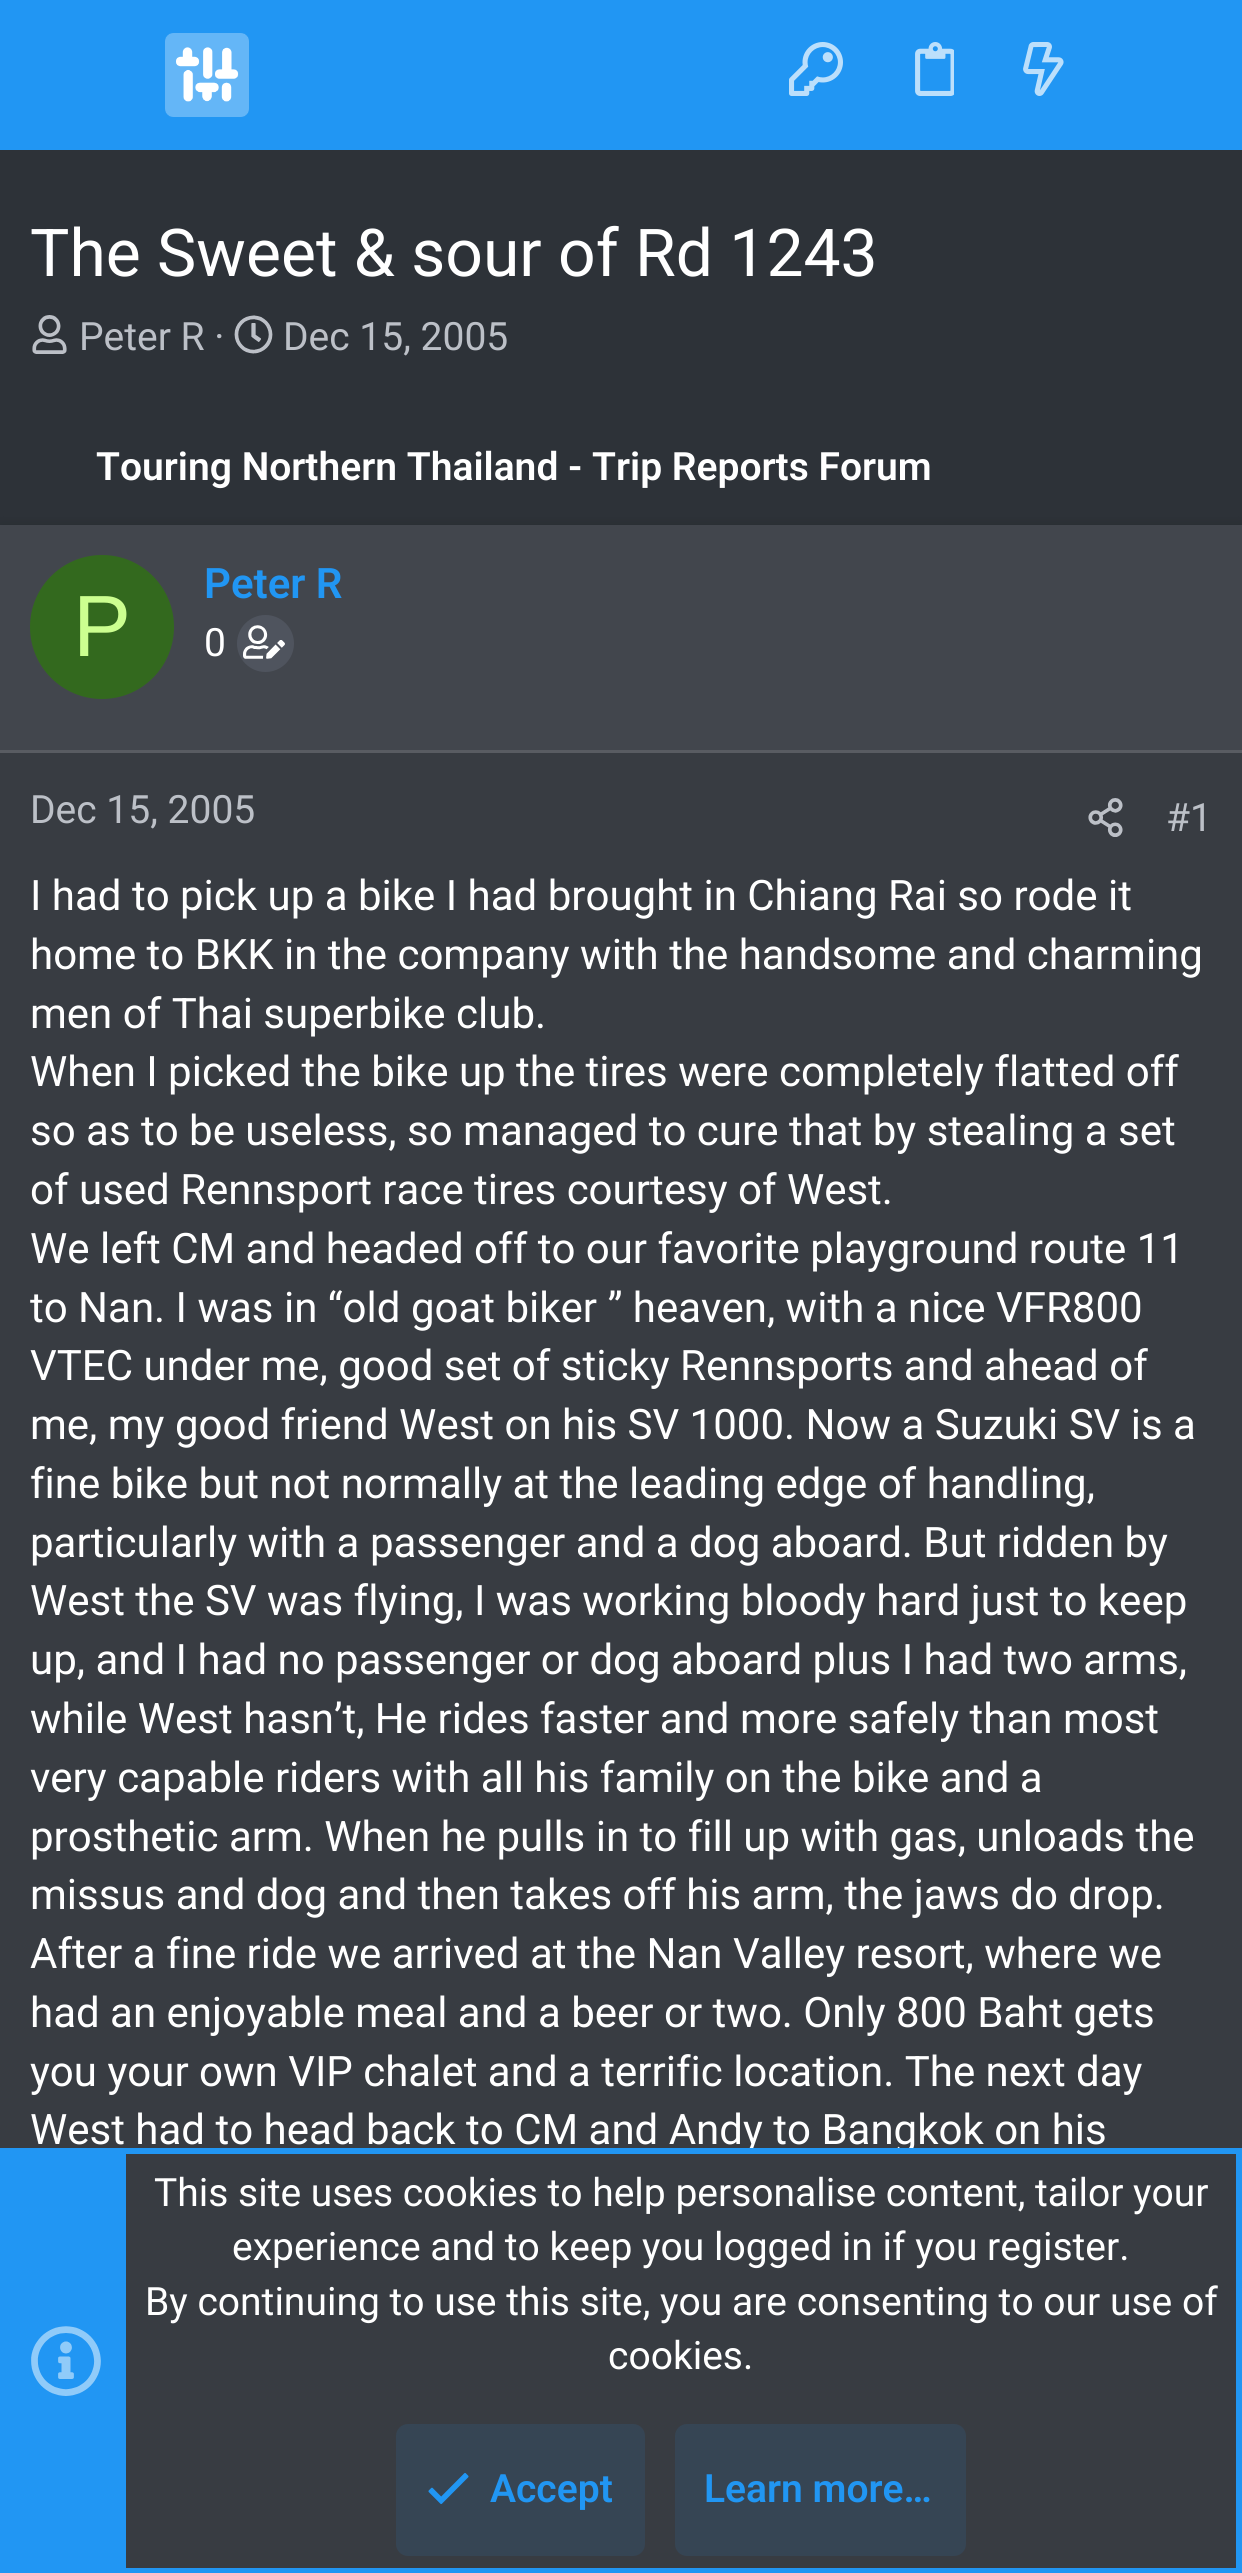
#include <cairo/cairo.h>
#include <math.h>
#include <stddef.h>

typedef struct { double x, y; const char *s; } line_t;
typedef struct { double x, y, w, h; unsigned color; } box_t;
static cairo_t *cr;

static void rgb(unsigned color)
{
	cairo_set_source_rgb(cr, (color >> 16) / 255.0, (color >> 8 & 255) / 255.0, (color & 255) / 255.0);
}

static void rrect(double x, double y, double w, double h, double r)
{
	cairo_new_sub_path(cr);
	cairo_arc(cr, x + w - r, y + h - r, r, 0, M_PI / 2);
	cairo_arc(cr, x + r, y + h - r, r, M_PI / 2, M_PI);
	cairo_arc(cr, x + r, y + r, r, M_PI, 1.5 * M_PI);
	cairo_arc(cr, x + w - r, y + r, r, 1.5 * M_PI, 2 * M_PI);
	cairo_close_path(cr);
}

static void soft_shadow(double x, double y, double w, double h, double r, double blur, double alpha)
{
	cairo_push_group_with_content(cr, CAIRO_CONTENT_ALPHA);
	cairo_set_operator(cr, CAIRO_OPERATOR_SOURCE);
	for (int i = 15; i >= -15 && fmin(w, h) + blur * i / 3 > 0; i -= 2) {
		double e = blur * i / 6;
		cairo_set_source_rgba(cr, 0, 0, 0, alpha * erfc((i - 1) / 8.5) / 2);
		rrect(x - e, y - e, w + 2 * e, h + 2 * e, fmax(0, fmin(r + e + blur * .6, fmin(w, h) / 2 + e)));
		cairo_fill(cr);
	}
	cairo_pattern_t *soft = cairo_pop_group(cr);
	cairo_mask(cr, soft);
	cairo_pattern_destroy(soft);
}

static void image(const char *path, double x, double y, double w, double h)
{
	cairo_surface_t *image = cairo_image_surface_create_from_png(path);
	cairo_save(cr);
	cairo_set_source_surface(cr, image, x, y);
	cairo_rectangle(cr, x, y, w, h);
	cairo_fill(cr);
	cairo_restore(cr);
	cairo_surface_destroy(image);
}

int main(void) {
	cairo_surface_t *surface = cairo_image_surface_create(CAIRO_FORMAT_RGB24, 1242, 2573);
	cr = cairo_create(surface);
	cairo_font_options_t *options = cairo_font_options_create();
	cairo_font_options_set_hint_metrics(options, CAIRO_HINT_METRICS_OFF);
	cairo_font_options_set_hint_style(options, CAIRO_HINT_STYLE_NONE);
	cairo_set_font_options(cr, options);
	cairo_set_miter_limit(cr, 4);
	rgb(0x2d3238);
	cairo_paint(cr);
	rgb(0x2196f3);
	cairo_rectangle(cr, 0, 0, 1242, 150);
	cairo_fill(cr);
	image("img/1.png", 165, 33, 84, 84);
	image("img/2.png", 789, 42, 54, 54);
	image("img/3.png", 915, 42, 39, 54);
	image("img/4.png", 1023, 42, 41, 54);
	image("img/5.png", 32, 315, 35, 39);
	image("img/6.png", 234, 315, 39, 39);
	rgb(0x000000);
	soft_shadow(0, 528, 1242, 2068, 0, 7.5, 0.2);
	{
		static const box_t items[] = {
			{0, 753, 1242, 1395, 0x383c42},
			{0, 525, 1242, 225, 0x42464d},
			{0, 750, 1242, 3, 0x595c62},
		};
		for (size_t i = 0; i < sizeof items / sizeof *items; i++) {
			rgb(items[i].color);
			cairo_rectangle(cr, items[i].x, items[i].y, items[i].w, items[i].h);
			cairo_fill(cr);
		}
	}
	rgb(0x33691e);
	cairo_arc(cr, 102, 627, 72, 0, 2 * M_PI);
	cairo_fill(cr);
	rgb(0x4f545e);
	cairo_arc(cr, 265.5, 643.5, 28.5, 0, 2 * M_PI);
	cairo_fill(cr);
	image("img/7.png", 243, 625, 42, 34);
	image("img/8.png", 1088, 798, 35, 39);
	rgb(0x383c42);
	cairo_rectangle(cr, 126, 2154, 1110, 414);
	cairo_fill(cr);
	cairo_select_font_face(cr, "Roboto", CAIRO_FONT_SLANT_NORMAL, CAIRO_FONT_WEIGHT_NORMAL);
	cairo_set_font_size(cr, 66);
	rgb(0xffffff);
	cairo_move_to(cr, 30, 276);
	cairo_show_text(cr, "The Sweet & sour of Rd 1243");
	cairo_set_font_size(cr, 39);
	rgb(0xbcc0c7);
	cairo_move_to(cr, 79, 350);
	cairo_show_text(cr, "Peter R ·");
	cairo_move_to(cr, 283, 350);
	cairo_show_text(cr, "Dec 15, 2005");
	cairo_select_font_face(cr, "Roboto SemiBold", CAIRO_FONT_SLANT_NORMAL, CAIRO_FONT_WEIGHT_NORMAL);
	rgb(0xffffff);
	cairo_move_to(cr, 96, 480);
	cairo_show_text(cr, "Touring Northern Thailand - Trip Reports Forum");
	cairo_select_font_face(cr, "Liberation Sans", CAIRO_FONT_SLANT_NORMAL, CAIRO_FONT_WEIGHT_NORMAL);
	cairo_set_font_size(cr, 87);
	rgb(0xccff90);
	cairo_move_to(cr, 73, 656);
	cairo_show_text(cr, "P");
	cairo_select_font_face(cr, "Roboto SemiBold", CAIRO_FONT_SLANT_NORMAL, CAIRO_FONT_WEIGHT_NORMAL);
	cairo_set_font_size(cr, 42);
	rgb(0x2196f3);
	cairo_move_to(cr, 204, 598);
	cairo_show_text(cr, "Peter R");
	cairo_select_font_face(cr, "Roboto", CAIRO_FONT_SLANT_NORMAL, CAIRO_FONT_WEIGHT_NORMAL);
	cairo_set_font_size(cr, 39);
	rgb(0xffffff);
	cairo_move_to(cr, 204, 656);
	cairo_show_text(cr, "0");
	rgb(0xbcc0c7);
	cairo_move_to(cr, 30, 823);
	cairo_show_text(cr, "Dec 15, 2005");
	cairo_move_to(cr, 1166, 831);
	cairo_show_text(cr, "#1");
	cairo_set_font_size(cr, 42);
	rgb(0xffffff);
	{
		static const line_t items[] = {
			{30, 910, "I had to pick up a bike I had brought in Chiang Rai so rode it"},
			{30, 969, "home to BKK in the company with the handsome and charming"},
			{30, 1028, "men of Thai superbike club."},
			{30, 1086, "When I picked the bike up the tires were completely flatted off"},
			{30, 1145, "so as to be useless, so managed to cure that by stealing a set"},
			{30, 1204, "of used Rennsport race tires courtesy of West."},
			{30, 1263, "We left CM and headed off to our favorite playground route 11"},
			{30, 1322, "to Nan. I was in “old goat biker ” heaven, with a nice VFR800"},
			{30, 1380, "VTEC under me, good set of sticky Rennsports and ahead of"},
			{30, 1439, "me, my good friend West on his SV 1000. Now a Suzuki SV is a"},
			{30, 1498, "fine bike but not normally at the leading edge of handling,"},
			{30, 1557, "particularly with a passenger and a dog aboard. But ridden by"},
			{30, 1615, "West the SV was flying, I was working bloody hard just to keep"},
			{30, 1674, "up, and I had no passenger or dog aboard plus I had two arms,"},
			{30, 1733, "while West hasn’t, He rides faster and more safely than most"},
			{30, 1792, "very capable riders with all his family on the bike and a"},
			{30, 1851, "prosthetic arm. When he pulls in to fill up with gas, unloads the"},
			{30, 1909, "missus and dog and then takes off his arm, the jaws do drop."},
			{30, 1968, "After a fine ride we arrived at the Nan Valley resort, where we"},
			{30, 2027, "had an enjoyable meal and a beer or two. Only 800 Baht gets"},
			{30, 2086, "you your own VIP chalet and a terrific location. The next day"},
			{30, 2144, "West had to head back to CM and Andy to Bangkok on his"},
		};
		for (size_t i = 0; i < sizeof items / sizeof *items; i++) {
			cairo_move_to(cr, items[i].x, items[i].y);
			cairo_show_text(cr, items[i].s);
		}
	}
	cairo_rectangle(cr, 3, 2151, 1236, 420);
	rgb(0x2196f3);
	cairo_set_line_width(cr, 6);
	cairo_stroke(cr);
	cairo_rectangle(cr, 6, 2154, 120, 414);
	cairo_fill(cr);
	image("img/9.png", 31, 2326, 70, 70);
	cairo_set_font_size(cr, 39);
	rgb(0xffffff);
	{
		static const line_t items[] = {
			{154, 2206, "This site uses cookies to help personalise content, tailor your"},
			{232, 2260, "experience and to keep you logged in if you register."},
			{145, 2315, "By continuing to use this site, you are consenting to our use of"},
			{608, 2369, "cookies."},
		};
		for (size_t i = 0; i < sizeof items / sizeof *items; i++) {
			cairo_move_to(cr, items[i].x, items[i].y);
			cairo_show_text(cr, items[i].s);
		}
	}
	rgb(0x364554);
	rrect(396, 2424, 249, 132, 12);
	cairo_fill(cr);
	image("img/10.png", 428, 2473, 41, 31);
	cairo_select_font_face(cr, "Roboto SemiBold", CAIRO_FONT_SLANT_NORMAL, CAIRO_FONT_WEIGHT_NORMAL);
	rgb(0x2196f3);
	cairo_move_to(cr, 490, 2502);
	cairo_show_text(cr, "Accept");
	rgb(0x364554);
	rrect(675, 2424, 291, 132, 12);
	cairo_fill(cr);
	rgb(0x2196f3);
	cairo_move_to(cr, 704, 2502);
	cairo_show_text(cr, "Learn more…");
	cairo_surface_write_to_png(surface, "page.png");
	cairo_font_options_destroy(options);
	cairo_destroy(cr);
	cairo_surface_destroy(surface);
	return 0;
}
